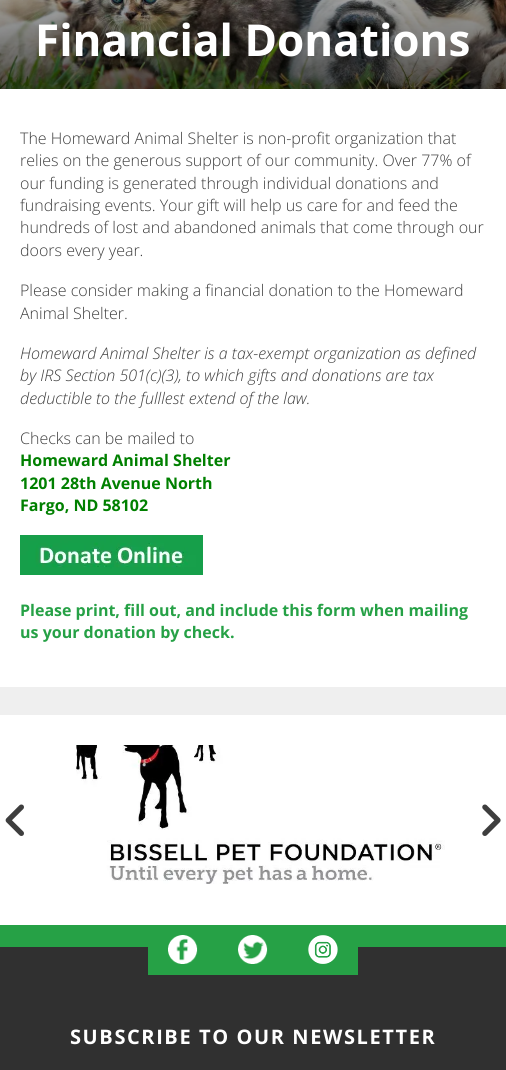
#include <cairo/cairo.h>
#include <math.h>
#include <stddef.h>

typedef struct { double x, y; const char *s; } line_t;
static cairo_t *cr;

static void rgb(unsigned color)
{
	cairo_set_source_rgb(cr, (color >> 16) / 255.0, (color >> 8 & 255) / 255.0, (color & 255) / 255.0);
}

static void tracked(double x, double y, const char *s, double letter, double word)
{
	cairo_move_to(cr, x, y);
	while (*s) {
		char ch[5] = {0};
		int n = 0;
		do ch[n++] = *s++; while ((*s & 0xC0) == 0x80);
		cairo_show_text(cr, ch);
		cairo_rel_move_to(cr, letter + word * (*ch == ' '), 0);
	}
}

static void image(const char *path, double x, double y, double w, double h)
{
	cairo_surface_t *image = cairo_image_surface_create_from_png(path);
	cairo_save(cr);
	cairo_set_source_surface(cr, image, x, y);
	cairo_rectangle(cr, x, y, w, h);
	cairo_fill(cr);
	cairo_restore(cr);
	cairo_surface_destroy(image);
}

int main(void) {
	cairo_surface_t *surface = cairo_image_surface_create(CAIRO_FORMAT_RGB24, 506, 1070);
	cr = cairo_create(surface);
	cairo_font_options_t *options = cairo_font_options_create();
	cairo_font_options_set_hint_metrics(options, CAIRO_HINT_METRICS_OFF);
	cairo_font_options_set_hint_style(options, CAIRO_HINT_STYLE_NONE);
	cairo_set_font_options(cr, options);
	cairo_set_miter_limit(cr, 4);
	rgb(0x26a146);
	cairo_paint(cr);
	image("img/1.png", 0, 0, 506, 89);
	rgb(0xffffff);
	cairo_rectangle(cr, 0, 89, 506, 598);
	cairo_fill(cr);
	image("img/2.png", 20, 535, 183, 40);
	cairo_rectangle(cr, 0, 715, 506, 210);
	cairo_fill(cr);
	rgb(0xefefef);
	cairo_rectangle(cr, 0, 687, 506, 28);
	cairo_fill(cr);
	image("img/3.png", 76, 745, 369, 139);
	image("img/4.png", 5, 804, 19, 32);
	image("img/5.png", 482, 804, 19, 32);
	rgb(0x303030);
	cairo_rectangle(cr, 0, 947, 506, 123);
	cairo_fill(cr);
	rgb(0x26a146);
	cairo_rectangle(cr, 148, 947, 210, 28);
	cairo_fill(cr);
	image("img/6.png", 168, 935, 30, 29);
	image("img/7.png", 238, 935, 30, 29);
	image("img/8.png", 308, 935, 30, 29);
	cairo_select_font_face(cr, "Open Sans", CAIRO_FONT_SLANT_NORMAL, CAIRO_FONT_WEIGHT_BOLD);
	cairo_set_font_size(cr, 44);
	rgb(0xffffff);
	cairo_move_to(cr, 35, 56);
	cairo_show_text(cr, "Financial Donations");
	cairo_select_font_face(cr, "Open Sans Light", CAIRO_FONT_SLANT_NORMAL, CAIRO_FONT_WEIGHT_NORMAL);
	cairo_set_font_size(cr, 16);
	rgb(0x3e3e3e);
	{
		static const line_t items[] = {
			{20, 144, "The Homeward Animal Shelter is non-profit organization that"},
			{20, 166, "relies on the generous support of our community. Over 77% of"},
			{20, 189, "our funding is generated through individual donations and"},
			{20, 211, "fundraising events. Your gift will help us care for and feed the"},
			{20, 233, "hundreds of lost and abandoned animals that come through our"},
			{20, 256, "doors every year."},
			{20, 296, "Please consider making a financial donation to the Homeward"},
			{20, 319, "Animal Shelter."},
		};
		for (size_t i = 0; i < sizeof items / sizeof *items; i++) {
			cairo_move_to(cr, items[i].x, items[i].y);
			cairo_show_text(cr, items[i].s);
		}
	}
	cairo_select_font_face(cr, "Open Sans Light", CAIRO_FONT_SLANT_ITALIC, CAIRO_FONT_WEIGHT_NORMAL);
	{
		static const line_t items[] = {
			{20, 359, "Homeward Animal Shelter is a tax-exempt organization as defined"},
			{20, 381, "by IRS Section 501(c)(3), to which gifts and donations are tax"},
			{20, 404, "deductible to the fulllest extend of the law."},
		};
		for (size_t i = 0; i < sizeof items / sizeof *items; i++) {
			cairo_move_to(cr, items[i].x, items[i].y);
			cairo_show_text(cr, items[i].s);
		}
	}
	cairo_select_font_face(cr, "Open Sans Light", CAIRO_FONT_SLANT_NORMAL, CAIRO_FONT_WEIGHT_NORMAL);
	cairo_move_to(cr, 20, 444);
	cairo_show_text(cr, "Checks can be mailed to");
	cairo_select_font_face(cr, "Open Sans", CAIRO_FONT_SLANT_NORMAL, CAIRO_FONT_WEIGHT_BOLD);
	rgb(0x008000);
	{
		static const line_t items[] = {
			{20, 466, "Homeward Animal Shelter"},
			{20, 489, "1201 28th Avenue North"},
			{20, 511, "Fargo, ND 58102"},
		};
		for (size_t i = 0; i < sizeof items / sizeof *items; i++) {
			cairo_move_to(cr, items[i].x, items[i].y);
			cairo_show_text(cr, items[i].s);
		}
	}
	rgb(0x26a146);
	cairo_move_to(cr, 20, 616);
	cairo_show_text(cr, "Please print, fill out, and include this form when mailing");
	cairo_move_to(cr, 20, 638);
	cairo_show_text(cr, "us your donation by check.");
	cairo_set_font_size(cr, 20);
	rgb(0xffffff);
	tracked(70, 1044, "SUBSCRIBE TO OUR NEWSLETTER", 1.6, 0);
	cairo_surface_write_to_png(surface, "page.png");
	cairo_font_options_destroy(options);
	cairo_destroy(cr);
	cairo_surface_destroy(surface);
	return 0;
}
